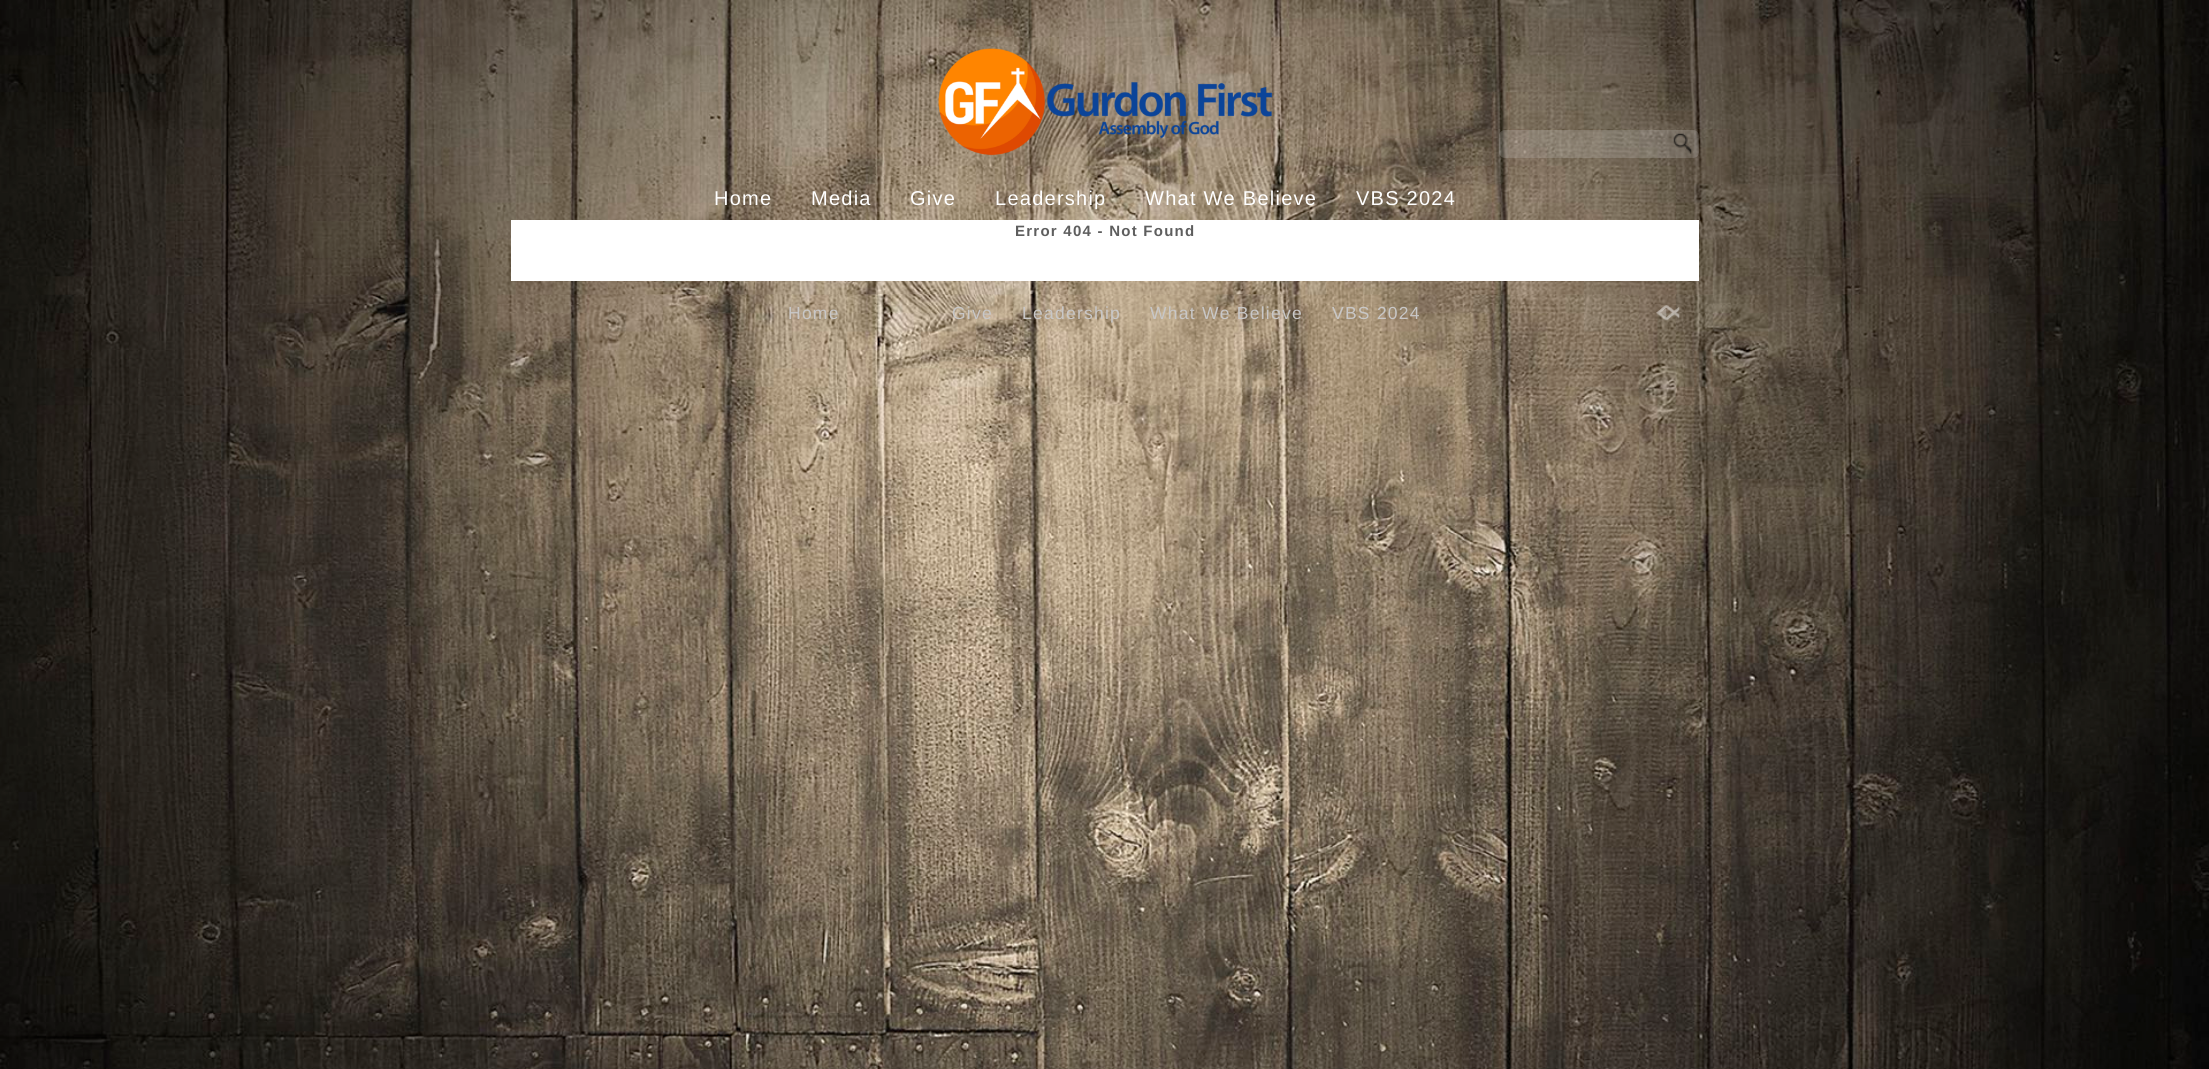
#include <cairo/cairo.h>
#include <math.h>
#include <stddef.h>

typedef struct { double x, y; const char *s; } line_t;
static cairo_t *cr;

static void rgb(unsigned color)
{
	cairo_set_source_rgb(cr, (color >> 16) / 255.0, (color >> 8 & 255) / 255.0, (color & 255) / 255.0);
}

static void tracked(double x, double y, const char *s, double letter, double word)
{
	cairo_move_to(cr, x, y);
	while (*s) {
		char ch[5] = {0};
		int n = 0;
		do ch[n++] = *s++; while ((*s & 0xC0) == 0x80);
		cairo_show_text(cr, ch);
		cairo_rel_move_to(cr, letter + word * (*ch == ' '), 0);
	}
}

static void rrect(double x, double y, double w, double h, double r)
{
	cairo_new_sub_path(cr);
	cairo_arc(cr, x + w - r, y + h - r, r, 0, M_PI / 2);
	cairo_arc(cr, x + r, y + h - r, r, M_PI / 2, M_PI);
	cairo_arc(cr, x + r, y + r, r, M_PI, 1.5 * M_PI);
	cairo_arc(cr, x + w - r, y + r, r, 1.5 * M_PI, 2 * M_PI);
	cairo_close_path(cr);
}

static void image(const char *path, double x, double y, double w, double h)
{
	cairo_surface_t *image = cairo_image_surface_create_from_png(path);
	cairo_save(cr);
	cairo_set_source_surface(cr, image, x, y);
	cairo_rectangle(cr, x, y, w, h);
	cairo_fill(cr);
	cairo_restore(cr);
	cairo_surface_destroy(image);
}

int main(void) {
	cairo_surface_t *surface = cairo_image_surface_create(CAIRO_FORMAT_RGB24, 2209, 1069);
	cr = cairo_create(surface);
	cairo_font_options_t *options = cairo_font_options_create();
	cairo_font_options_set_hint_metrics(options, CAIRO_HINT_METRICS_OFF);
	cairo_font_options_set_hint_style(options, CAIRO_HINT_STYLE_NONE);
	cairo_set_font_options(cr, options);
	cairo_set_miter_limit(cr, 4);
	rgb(0xffffff);
	cairo_paint(cr);
	image("img/1.png", 0, 0, 2209, 1069);
	image("img/2.png", 938, 48, 335, 108);
	cairo_set_source_rgba(cr, 0.875, 0.875, 0.875, 0.2);
	rrect(1499, 130, 200, 28, 6);
	cairo_fill(cr);
	image("img/3.png", 1673, 133, 19, 21);
	rgb(0xffffff);
	cairo_rectangle(cr, 511, 220, 1188, 61);
	cairo_fill(cr);
	image("img/4.png", 1656, 305, 24, 16);
	cairo_select_font_face(cr, "Liberation Sans", CAIRO_FONT_SLANT_NORMAL, CAIRO_FONT_WEIGHT_NORMAL);
	cairo_set_font_size(cr, 20);
	{
		static const line_t items[] = {
			{714, 205, "Home"},
			{811, 205, "Media"},
			{910, 205, "Give"},
			{995, 205, "Leadership"},
			{1145, 205, "What We Believe"},
			{1356, 205, "VBS 2024"},
		};
		for (size_t i = 0; i < sizeof items / sizeof *items; i++) {
			tracked(items[i].x, items[i].y, items[i].s, 1.25, 0);
		}
	}
	cairo_select_font_face(cr, "Liberation Sans", CAIRO_FONT_SLANT_NORMAL, CAIRO_FONT_WEIGHT_BOLD);
	cairo_set_font_size(cr, 15);
	rgb(0x5e5e5e);
	tracked(1015, 236, "Error 404 - Not Found", 1.25, 0);
	cairo_select_font_face(cr, "Liberation Sans", CAIRO_FONT_SLANT_NORMAL, CAIRO_FONT_WEIGHT_NORMAL);
	cairo_set_font_size(cr, 17.5);
	rgb(0xc8c7c7);
	{
		static const line_t items[] = {
			{788, 319, "Home"},
			{952, 319, "Give"},
			{1022, 319, "Leadership"},
			{1150, 319, "What We Believe"},
			{1332, 319, "VBS 2024"},
		};
		for (size_t i = 0; i < sizeof items / sizeof *items; i++) {
			tracked(items[i].x, items[i].y, items[i].s, 1.25, 0);
		}
	}
	cairo_surface_write_to_png(surface, "page.png");
	cairo_font_options_destroy(options);
	cairo_destroy(cr);
	cairo_surface_destroy(surface);
	return 0;
}
